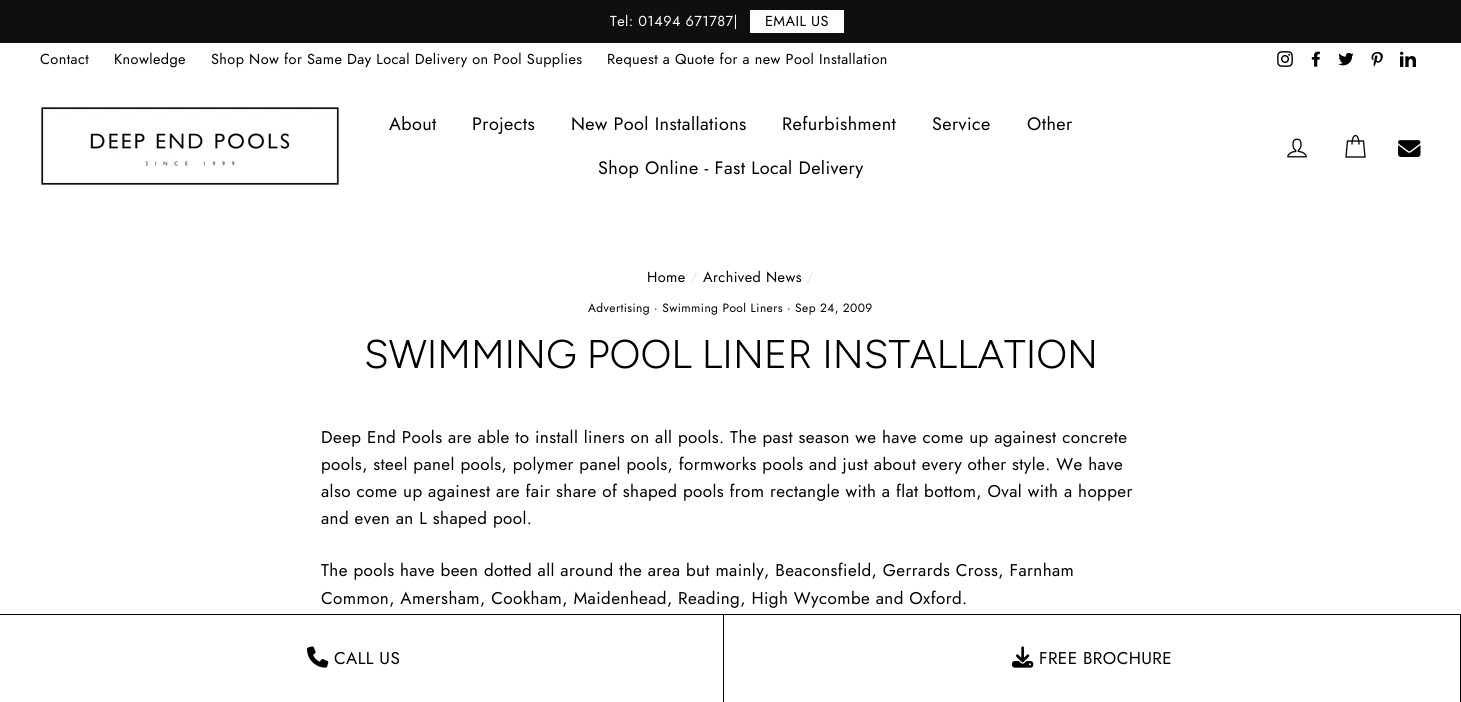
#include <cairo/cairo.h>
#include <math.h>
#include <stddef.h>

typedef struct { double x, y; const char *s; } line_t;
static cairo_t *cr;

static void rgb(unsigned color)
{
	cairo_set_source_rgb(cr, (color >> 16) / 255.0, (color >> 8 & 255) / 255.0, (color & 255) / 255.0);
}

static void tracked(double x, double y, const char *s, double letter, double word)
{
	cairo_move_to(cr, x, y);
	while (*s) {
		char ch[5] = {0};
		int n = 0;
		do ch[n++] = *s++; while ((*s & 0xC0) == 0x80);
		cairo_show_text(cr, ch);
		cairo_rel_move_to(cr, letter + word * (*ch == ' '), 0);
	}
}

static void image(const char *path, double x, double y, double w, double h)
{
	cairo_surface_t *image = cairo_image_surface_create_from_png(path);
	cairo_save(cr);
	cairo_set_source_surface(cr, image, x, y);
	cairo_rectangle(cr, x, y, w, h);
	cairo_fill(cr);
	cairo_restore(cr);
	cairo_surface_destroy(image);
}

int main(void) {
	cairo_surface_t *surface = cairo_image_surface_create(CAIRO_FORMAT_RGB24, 1461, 702);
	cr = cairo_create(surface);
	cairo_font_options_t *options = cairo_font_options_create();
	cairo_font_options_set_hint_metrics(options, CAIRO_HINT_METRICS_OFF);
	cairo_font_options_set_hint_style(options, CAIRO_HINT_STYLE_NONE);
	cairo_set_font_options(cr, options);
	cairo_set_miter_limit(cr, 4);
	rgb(0xffffff);
	cairo_paint(cr);
	rgb(0x0f0f0f);
	cairo_rectangle(cr, 0, 0, 1461, 43);
	cairo_fill(cr);
	rgb(0xffffff);
	cairo_rectangle(cr, 750, 10, 94, 23);
	cairo_fill(cr);
	image("img/1.png", 1277, 51, 16, 16);
	image("img/2.png", 1311, 51, 9, 16);
	image("img/3.png", 1338, 52, 16, 14);
	image("img/4.png", 1371, 51, 12, 16);
	image("img/5.png", 1400, 51, 16, 16);
	image("img/6.png", 40, 106, 300, 80);
	image("img/7.png", 1287, 138, 20, 20);
	cairo_new_path(cr);
	cairo_move_to(cr, 1352, 144.5);
	cairo_curve_to(cr, 1352, 132.5, 1359, 132.5, 1359, 144.5);
	cairo_move_to(cr, 1347.5, 141);
	cairo_line_to(cr, 1363.5, 141);
	cairo_line_to(cr, 1365, 157);
	cairo_line_to(cr, 1346, 157);
	cairo_close_path(cr);
	rgb(0x000000);
	cairo_set_line_width(cr, 1.3);
	cairo_stroke(cr);
	image("img/8.png", 1398, 140, 23, 17);
	cairo_rectangle(cr, 0, 614, 1461, 1);
	cairo_fill(cr);
	image("img/9.png", 307, 646, 22, 22);
	cairo_rectangle(cr, 1460, 615, 1, 87);
	cairo_fill(cr);
	cairo_rectangle(cr, 723, 615, 1, 87);
	cairo_fill(cr);
	image("img/10.png", 1012, 646, 22, 22);
	cairo_select_font_face(cr, "Jost", CAIRO_FONT_SLANT_NORMAL, CAIRO_FONT_WEIGHT_NORMAL);
	cairo_set_font_size(cr, 14.45);
	rgb(0xffffff);
	tracked(610, 26, "Tel: 01494 671787|", 0.42, 0);
	rgb(0x000000);
	{
		static const line_t items[] = {
			{765, 26, "EMAIL US"},
			{40, 64, "Contact"},
			{114, 64, "Knowledge"},
			{211, 64, "Shop Now for Same Day Local Delivery on Pool Supplies"},
			{607, 64, "Request a Quote for a new Pool Installation"},
		};
		for (size_t i = 0; i < sizeof items / sizeof *items; i++) {
			tracked(items[i].x, items[i].y, items[i].s, 0.42, 0);
		}
	}
	cairo_set_font_size(cr, 18);
	{
		static const line_t items[] = {
			{389, 130, "About"},
			{472, 130, "Projects"},
			{571, 130, "New Pool Installations"},
			{782, 130, "Refurbishment"},
			{932, 130, "Service"},
			{1027, 130, "Other"},
			{598, 174, "Shop Online - Fast Local Delivery"},
		};
		for (size_t i = 0; i < sizeof items / sizeof *items; i++) {
			tracked(items[i].x, items[i].y, items[i].s, 0.42, 0);
		}
	}
	cairo_set_font_size(cr, 14.45);
	tracked(647, 282, "Home", 0.42, 0);
	rgb(0xe8e8e1);
	tracked(690, 282, "/", 0.42, 0);
	rgb(0x000000);
	tracked(703, 282, "Archived News", 0.42, 0);
	rgb(0xe8e8e1);
	tracked(806, 282, "/", 0.42, 0);
	cairo_set_font_size(cr, 12);
	rgb(0x000000);
	tracked(588, 312, "Advertising · Swimming Pool Liners · Sep 24, 2009", 0.42, 0);
	cairo_select_font_face(cr, "Figtree Light", CAIRO_FONT_SLANT_NORMAL, CAIRO_FONT_WEIGHT_NORMAL);
	cairo_set_font_size(cr, 40);
	cairo_move_to(cr, 364, 368);
	cairo_show_text(cr, "SWIMMING POOL LINER INSTALLATION");
	cairo_select_font_face(cr, "Jost", CAIRO_FONT_SLANT_NORMAL, CAIRO_FONT_WEIGHT_NORMAL);
	cairo_set_font_size(cr, 17);
	{
		static const line_t items[] = {
			{321, 443, "Deep End Pools are able to install liners on all pools. The past season we have come up againest concrete"},
			{321, 470, "pools, steel panel pools, polymer panel pools, formworks pools and just about every other style. We have"},
			{321, 497, "also come up againest are fair share of shaped pools from rectangle with a flat bottom, Oval with a hopper"},
			{321, 524, "and even an L shaped pool."},
			{321, 576, "The pools have been dotted all around the area but mainly, Beaconsfield, Gerrards Cross, Farnham"},
			{321, 604, "Common, Amersham, Cookham, Maidenhead, Reading, High Wycombe and Oxford."},
			{334, 664, "CALL US"},
			{1039, 664, "FREE BROCHURE"},
		};
		for (size_t i = 0; i < sizeof items / sizeof *items; i++) {
			tracked(items[i].x, items[i].y, items[i].s, 0.42, 0);
		}
	}
	cairo_surface_write_to_png(surface, "page.png");
	cairo_font_options_destroy(options);
	cairo_destroy(cr);
	cairo_surface_destroy(surface);
	return 0;
}
